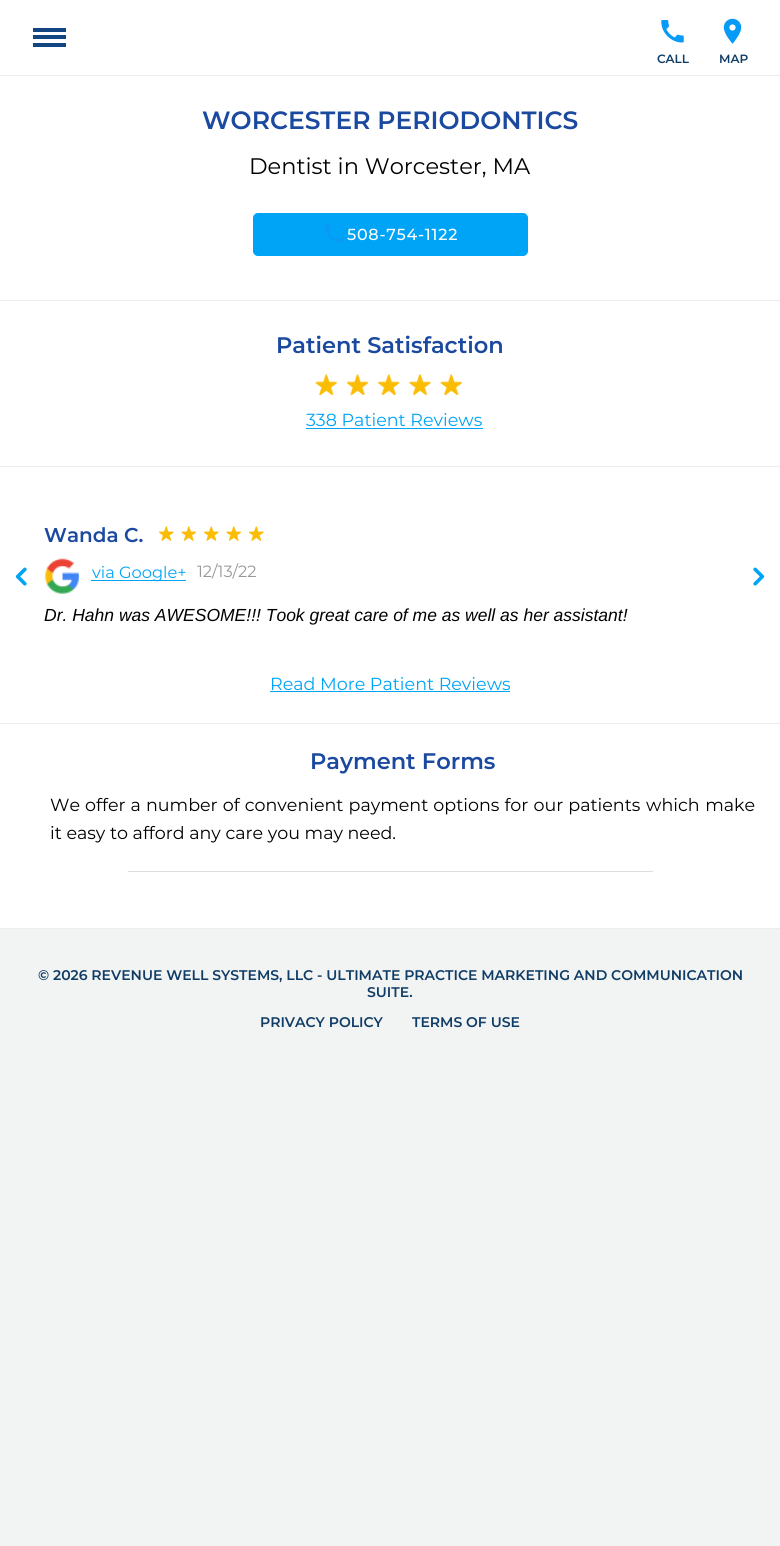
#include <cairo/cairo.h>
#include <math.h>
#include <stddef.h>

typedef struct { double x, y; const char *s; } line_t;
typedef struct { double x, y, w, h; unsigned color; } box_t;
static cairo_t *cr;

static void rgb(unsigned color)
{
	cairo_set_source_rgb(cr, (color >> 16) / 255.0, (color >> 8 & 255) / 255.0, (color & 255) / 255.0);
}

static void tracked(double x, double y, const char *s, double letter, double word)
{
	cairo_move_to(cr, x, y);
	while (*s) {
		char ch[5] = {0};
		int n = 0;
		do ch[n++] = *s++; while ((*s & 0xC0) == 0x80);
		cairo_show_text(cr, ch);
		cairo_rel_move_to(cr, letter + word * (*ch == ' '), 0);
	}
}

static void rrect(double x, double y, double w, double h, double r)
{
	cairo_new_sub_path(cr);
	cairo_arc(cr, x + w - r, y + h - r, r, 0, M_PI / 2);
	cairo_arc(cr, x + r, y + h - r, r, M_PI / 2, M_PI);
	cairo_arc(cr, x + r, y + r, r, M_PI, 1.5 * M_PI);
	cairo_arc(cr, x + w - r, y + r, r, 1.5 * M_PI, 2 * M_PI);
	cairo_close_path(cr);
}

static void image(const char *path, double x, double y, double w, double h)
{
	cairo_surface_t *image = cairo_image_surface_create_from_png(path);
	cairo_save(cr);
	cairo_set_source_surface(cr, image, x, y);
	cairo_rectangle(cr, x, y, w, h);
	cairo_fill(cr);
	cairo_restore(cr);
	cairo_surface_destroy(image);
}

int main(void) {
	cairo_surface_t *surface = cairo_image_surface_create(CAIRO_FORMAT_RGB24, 780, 1546);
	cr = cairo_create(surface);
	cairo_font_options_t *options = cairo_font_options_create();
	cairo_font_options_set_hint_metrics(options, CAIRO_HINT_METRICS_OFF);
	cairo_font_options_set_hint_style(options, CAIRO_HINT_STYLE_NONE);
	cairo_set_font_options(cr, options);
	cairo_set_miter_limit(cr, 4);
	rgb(0xf2f3f3);
	cairo_paint(cr);
	{
		static const box_t items[] = {
			{0, 0, 780, 928, 0xffffff},
			{0, 75, 780, 1, 0xededed},
			{33, 28, 33, 4, 0x124581},
			{33, 35, 33, 4, 0x124581},
			{33, 43, 33, 4, 0x124581},
		};
		for (size_t i = 0; i < sizeof items / sizeof *items; i++) {
			rgb(items[i].color);
			cairo_rectangle(cr, items[i].x, items[i].y, items[i].w, items[i].h);
			cairo_fill(cr);
		}
	}
	image("img/1.png", 661, 20, 23, 23);
	image("img/2.png", 723, 18, 19, 26);
	rgb(0xededed);
	cairo_rectangle(cr, 0, 300, 780, 1);
	cairo_fill(cr);
	rgb(0x00a4f7);
	rrect(253.5, 213.5, 274, 42, 4.5);
	cairo_fill_preserve(cr);
	cairo_set_line_width(cr, 1);
	cairo_stroke(cr);
	image("img/3.png", 324, 224, 19, 19);
	rgb(0xededed);
	cairo_rectangle(cr, 0, 466, 780, 1);
	cairo_fill(cr);
	image("img/4.png", 315, 374, 22, 22);
	image("img/5.png", 346, 374, 23, 22);
	image("img/6.png", 378, 374, 22, 22);
	image("img/7.png", 409, 374, 22, 22);
	image("img/8.png", 440, 374, 22, 22);
	rgb(0x00a4f7);
	cairo_rectangle(cr, 306, 428, 177, 1);
	cairo_fill(cr);
	rgb(0xededed);
	cairo_rectangle(cr, 0, 723, 780, 1);
	cairo_fill(cr);
	image("img/9.png", 15, 567, 12, 19);
	image("img/10.png", 158, 526, 16, 15);
	image("img/11.png", 181, 526, 16, 15);
	image("img/10.png", 203, 526, 16, 15);
	image("img/11.png", 226, 526, 16, 15);
	image("img/10.png", 248, 526, 16, 15);
	image("img/12.png", 44, 558, 36, 36);
	rgb(0x00a4f7);
	cairo_rectangle(cr, 91, 580, 95, 1);
	cairo_fill(cr);
	image("img/13.png", 753, 567, 12, 19);
	{
		static const box_t items[] = {
			{270, 691, 240, 1, 0x00a4f7},
			{0, 928, 780, 1, 0xededed},
			{128, 871, 525, 1, 0xdedede},
		};
		for (size_t i = 0; i < sizeof items / sizeof *items; i++) {
			rgb(items[i].color);
			cairo_rectangle(cr, items[i].x, items[i].y, items[i].w, items[i].h);
			cairo_fill(cr);
		}
	}
	cairo_select_font_face(cr, "Montserrat SemiBold", CAIRO_FONT_SLANT_NORMAL, CAIRO_FONT_WEIGHT_NORMAL);
	cairo_set_font_size(cr, 12);
	rgb(0x103d66);
	cairo_move_to(cr, 657, 63);
	cairo_show_text(cr, "CALL");
	cairo_move_to(cr, 719, 63);
	cairo_show_text(cr, "MAP");
	cairo_set_font_size(cr, 25);
	rgb(0x1b499f);
	cairo_move_to(cr, 202, 129);
	cairo_show_text(cr, "WORCESTER PERIODONTICS");
	cairo_select_font_face(cr, "Montserrat", CAIRO_FONT_SLANT_NORMAL, CAIRO_FONT_WEIGHT_NORMAL);
	cairo_set_font_size(cr, 22.5);
	rgb(0x000000);
	cairo_move_to(cr, 249, 174);
	cairo_show_text(cr, "Dentist in Worcester, MA");
	cairo_select_font_face(cr, "Montserrat Medium", CAIRO_FONT_SLANT_NORMAL, CAIRO_FONT_WEIGHT_NORMAL);
	cairo_set_font_size(cr, 16);
	rgb(0xffffff);
	tracked(347, 240, "508-754-1122", 0.75, 0);
	cairo_select_font_face(cr, "Montserrat SemiBold", CAIRO_FONT_SLANT_NORMAL, CAIRO_FONT_WEIGHT_NORMAL);
	cairo_set_font_size(cr, 22.5);
	rgb(0x1b499f);
	cairo_move_to(cr, 276, 353);
	cairo_show_text(cr, "Patient Satisfaction");
	cairo_select_font_face(cr, "Montserrat", CAIRO_FONT_SLANT_NORMAL, CAIRO_FONT_WEIGHT_NORMAL);
	cairo_set_font_size(cr, 17.5);
	rgb(0x00a4f7);
	cairo_move_to(cr, 306, 426);
	cairo_show_text(cr, "338 Patient Reviews");
	cairo_select_font_face(cr, "Montserrat SemiBold", CAIRO_FONT_SLANT_NORMAL, CAIRO_FONT_WEIGHT_NORMAL);
	cairo_set_font_size(cr, 20);
	rgb(0x1b499f);
	cairo_move_to(cr, 44, 542);
	cairo_show_text(cr, "Wanda C.");
	cairo_select_font_face(cr, "Montserrat", CAIRO_FONT_SLANT_NORMAL, CAIRO_FONT_WEIGHT_NORMAL);
	cairo_set_font_size(cr, 16.25);
	rgb(0x00a4f7);
	cairo_move_to(cr, 92, 578);
	cairo_show_text(cr, "via Google+");
	rgb(0x999999);
	cairo_move_to(cr, 197, 577);
	cairo_show_text(cr, "12/13/22");
	cairo_select_font_face(cr, "Liberation Sans", CAIRO_FONT_SLANT_ITALIC, CAIRO_FONT_WEIGHT_NORMAL);
	cairo_set_font_size(cr, 17.5);
	rgb(0x000000);
	cairo_move_to(cr, 44, 621);
	cairo_show_text(cr, "Dr. Hahn was AWESOME!!! Took great care of me as well as her assistant!");
	cairo_select_font_face(cr, "Montserrat", CAIRO_FONT_SLANT_NORMAL, CAIRO_FONT_WEIGHT_NORMAL);
	rgb(0x00a4f7);
	cairo_move_to(cr, 270, 690);
	cairo_show_text(cr, "Read More Patient Reviews");
	cairo_select_font_face(cr, "Montserrat SemiBold", CAIRO_FONT_SLANT_NORMAL, CAIRO_FONT_WEIGHT_NORMAL);
	cairo_set_font_size(cr, 22.5);
	rgb(0x1b499f);
	cairo_move_to(cr, 310, 769);
	cairo_show_text(cr, "Payment Forms");
	cairo_select_font_face(cr, "Montserrat", CAIRO_FONT_SLANT_NORMAL, CAIRO_FONT_WEIGHT_NORMAL);
	cairo_set_font_size(cr, 17.5);
	rgb(0x000000);
	tracked(50, 811, "We offer a number of convenient payment options for our patients", 0, 0.5);
	tracked(646, 811, "which make", 0, 1);
	cairo_move_to(cr, 50, 839);
	cairo_show_text(cr, "it easy to afford any care you may need.");
	cairo_select_font_face(cr, "Montserrat SemiBold", CAIRO_FONT_SLANT_NORMAL, CAIRO_FONT_WEIGHT_NORMAL);
	cairo_set_font_size(cr, 14);
	rgb(0x103d66);
	{
		static const line_t items[] = {
			{38, 980, "© 2026 REVENUE WELL SYSTEMS, LLC - ULTIMATE PRACTICE MARKETING AND COMMUNICATION"},
			{367, 997, "SUITE."},
			{260, 1027, "PRIVACY POLICY"},
			{412, 1027, "TERMS OF USE"},
		};
		for (size_t i = 0; i < sizeof items / sizeof *items; i++) {
			cairo_move_to(cr, items[i].x, items[i].y);
			cairo_show_text(cr, items[i].s);
		}
	}
	cairo_surface_write_to_png(surface, "page.png");
	cairo_font_options_destroy(options);
	cairo_destroy(cr);
	cairo_surface_destroy(surface);
	return 0;
}
